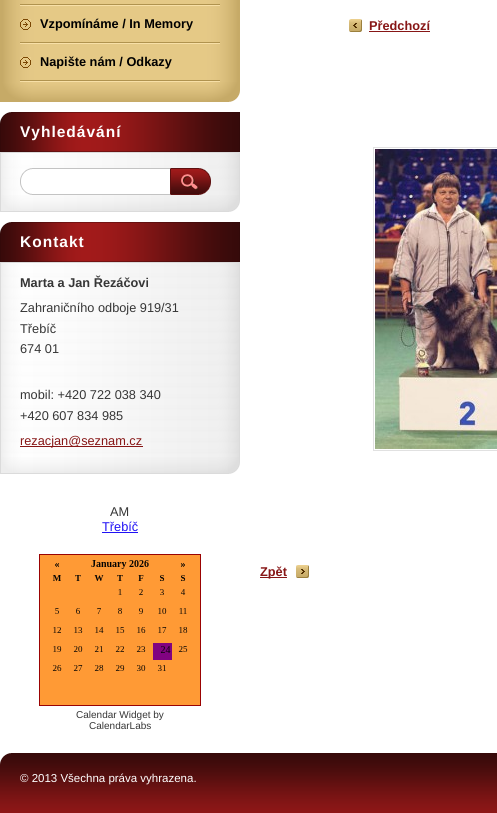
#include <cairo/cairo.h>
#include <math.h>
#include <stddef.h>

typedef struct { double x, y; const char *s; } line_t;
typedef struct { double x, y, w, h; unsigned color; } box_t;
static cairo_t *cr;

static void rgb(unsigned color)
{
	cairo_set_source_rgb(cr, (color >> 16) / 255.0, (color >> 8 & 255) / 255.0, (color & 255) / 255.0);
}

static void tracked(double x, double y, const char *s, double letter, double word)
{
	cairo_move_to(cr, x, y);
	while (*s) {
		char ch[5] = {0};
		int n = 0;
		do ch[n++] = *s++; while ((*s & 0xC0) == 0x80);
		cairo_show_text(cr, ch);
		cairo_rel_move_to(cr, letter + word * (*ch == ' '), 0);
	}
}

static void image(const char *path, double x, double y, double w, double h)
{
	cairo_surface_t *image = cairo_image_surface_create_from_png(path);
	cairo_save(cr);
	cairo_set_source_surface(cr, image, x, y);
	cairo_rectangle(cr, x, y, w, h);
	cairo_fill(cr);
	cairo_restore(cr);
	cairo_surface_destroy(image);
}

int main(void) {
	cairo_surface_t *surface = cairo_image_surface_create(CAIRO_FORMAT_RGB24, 497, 813);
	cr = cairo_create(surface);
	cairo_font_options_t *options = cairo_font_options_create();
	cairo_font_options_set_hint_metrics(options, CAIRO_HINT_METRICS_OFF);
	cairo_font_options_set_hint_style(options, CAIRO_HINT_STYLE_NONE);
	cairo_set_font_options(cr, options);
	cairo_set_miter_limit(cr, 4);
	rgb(0xffffff);
	cairo_paint(cr);
	image("img/1.png", 0, 82, 240, 20);
	image("img/2.png", 0, 0, 240, 82);
	image("img/3.png", 20, 4, 200, 2);
	image("img/3.png", 20, 42, 200, 2);
	image("img/4.png", 20, 19, 11, 11);
	image("img/3.png", 20, 80, 200, 2);
	image("img/4.png", 20, 57, 11, 11);
	image("img/5.png", 0, 195, 240, 17);
	image("img/6.png", 0, 112, 240, 40);
	image("img/7.png", 0, 153, 240, 42);
	rgb(0xdbdbdb);
	cairo_rectangle(cr, 0, 152, 240, 1);
	cairo_fill(cr);
	image("img/8.png", 20, 168, 150, 27);
	image("img/9.png", 170, 168, 41, 27);
	image("img/5.png", 0, 457, 240, 17);
	image("img/6.png", 0, 222, 240, 40);
	image("img/10.png", 0, 263, 240, 194);
	{
		static const box_t items[] = {
			{0, 262, 240, 1, 0xdbdbdb},
			{20, 446, 123, 1, 0x871616},
			{102, 532, 36, 1, 0x2011f5},
		};
		for (size_t i = 0; i < sizeof items / sizeof *items; i++) {
			rgb(items[i].color);
			cairo_rectangle(cr, items[i].x, items[i].y, items[i].w, items[i].h);
			cairo_fill(cr);
		}
	}
	image("img/11.png", 39, 554, 162, 152);
	image("img/12.png", 349, 19, 13, 13);
	rgb(0x871616);
	cairo_rectangle(cr, 369, 31, 61, 1);
	cairo_fill(cr);
	cairo_rectangle(cr, 373.5, 147.5, 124, 303);
	rgb(0xe1e1e1);
	cairo_set_line_width(cr, 1);
	cairo_stroke(cr);
	image("img/13.png", 375, 149, 122, 300);
	image("img/14.png", 296, 565, 13, 13);
	rgb(0x871616);
	cairo_rectangle(cr, 260, 577, 27, 1);
	cairo_fill(cr);
	image("img/15.png", 0, 753, 497, 60);
	cairo_select_font_face(cr, "Liberation Sans", CAIRO_FONT_SLANT_NORMAL, CAIRO_FONT_WEIGHT_BOLD);
	cairo_set_font_size(cr, 12.75);
	rgb(0x000000);
	cairo_move_to(cr, 40, 28);
	cairo_show_text(cr, "Vzpomínáme / In Memory");
	cairo_move_to(cr, 40, 66);
	cairo_show_text(cr, "Napište nám / Odkazy");
	cairo_set_font_size(cr, 15.5);
	rgb(0xffffff);
	tracked(20, 137, "Vyhledávání", 1, 0);
	tracked(20, 247, "Kontakt", 1, 0);
	cairo_set_font_size(cr, 12.75);
	rgb(0x363636);
	cairo_move_to(cr, 20, 287);
	cairo_show_text(cr, "Marta a Jan Řezáčovi");
	cairo_select_font_face(cr, "Liberation Sans", CAIRO_FONT_SLANT_NORMAL, CAIRO_FONT_WEIGHT_NORMAL);
	{
		static const line_t items[] = {
			{20, 312, "Zahraničního odboje 919/31"},
			{20, 333, "Třebíč"},
			{20, 353, "674 01"},
			{20, 399, "mobil: +420 722 038 340"},
			{20, 420, "+420 607 834 985"},
		};
		for (size_t i = 0; i < sizeof items / sizeof *items; i++) {
			cairo_move_to(cr, items[i].x, items[i].y);
			cairo_show_text(cr, items[i].s);
		}
	}
	rgb(0x871616);
	cairo_move_to(cr, 20, 445);
	cairo_show_text(cr, "rezacjan@seznam.cz");
	rgb(0x363636);
	cairo_move_to(cr, 110, 516);
	cairo_show_text(cr, "AM");
	rgb(0x2011f5);
	cairo_move_to(cr, 102, 531);
	cairo_show_text(cr, "Třebíč");
	cairo_set_font_size(cr, 10);
	rgb(0x363636);
	cairo_move_to(cr, 76, 718);
	cairo_show_text(cr, "Calendar Widget by");
	cairo_move_to(cr, 89, 729);
	cairo_show_text(cr, "CalendarLabs");
	cairo_select_font_face(cr, "Liberation Sans", CAIRO_FONT_SLANT_NORMAL, CAIRO_FONT_WEIGHT_BOLD);
	cairo_set_font_size(cr, 12.75);
	rgb(0x871616);
	cairo_move_to(cr, 369, 30);
	cairo_show_text(cr, "Předchozí");
	cairo_move_to(cr, 260, 576);
	cairo_show_text(cr, "Zpět");
	cairo_select_font_face(cr, "Liberation Sans", CAIRO_FONT_SLANT_NORMAL, CAIRO_FONT_WEIGHT_NORMAL);
	cairo_set_font_size(cr, 11.5);
	rgb(0xffffff);
	cairo_move_to(cr, 20, 782);
	cairo_show_text(cr, "© 2013 Všechna práva vyhrazena.");
	cairo_surface_write_to_png(surface, "page.png");
	cairo_font_options_destroy(options);
	cairo_destroy(cr);
	cairo_surface_destroy(surface);
	return 0;
}
